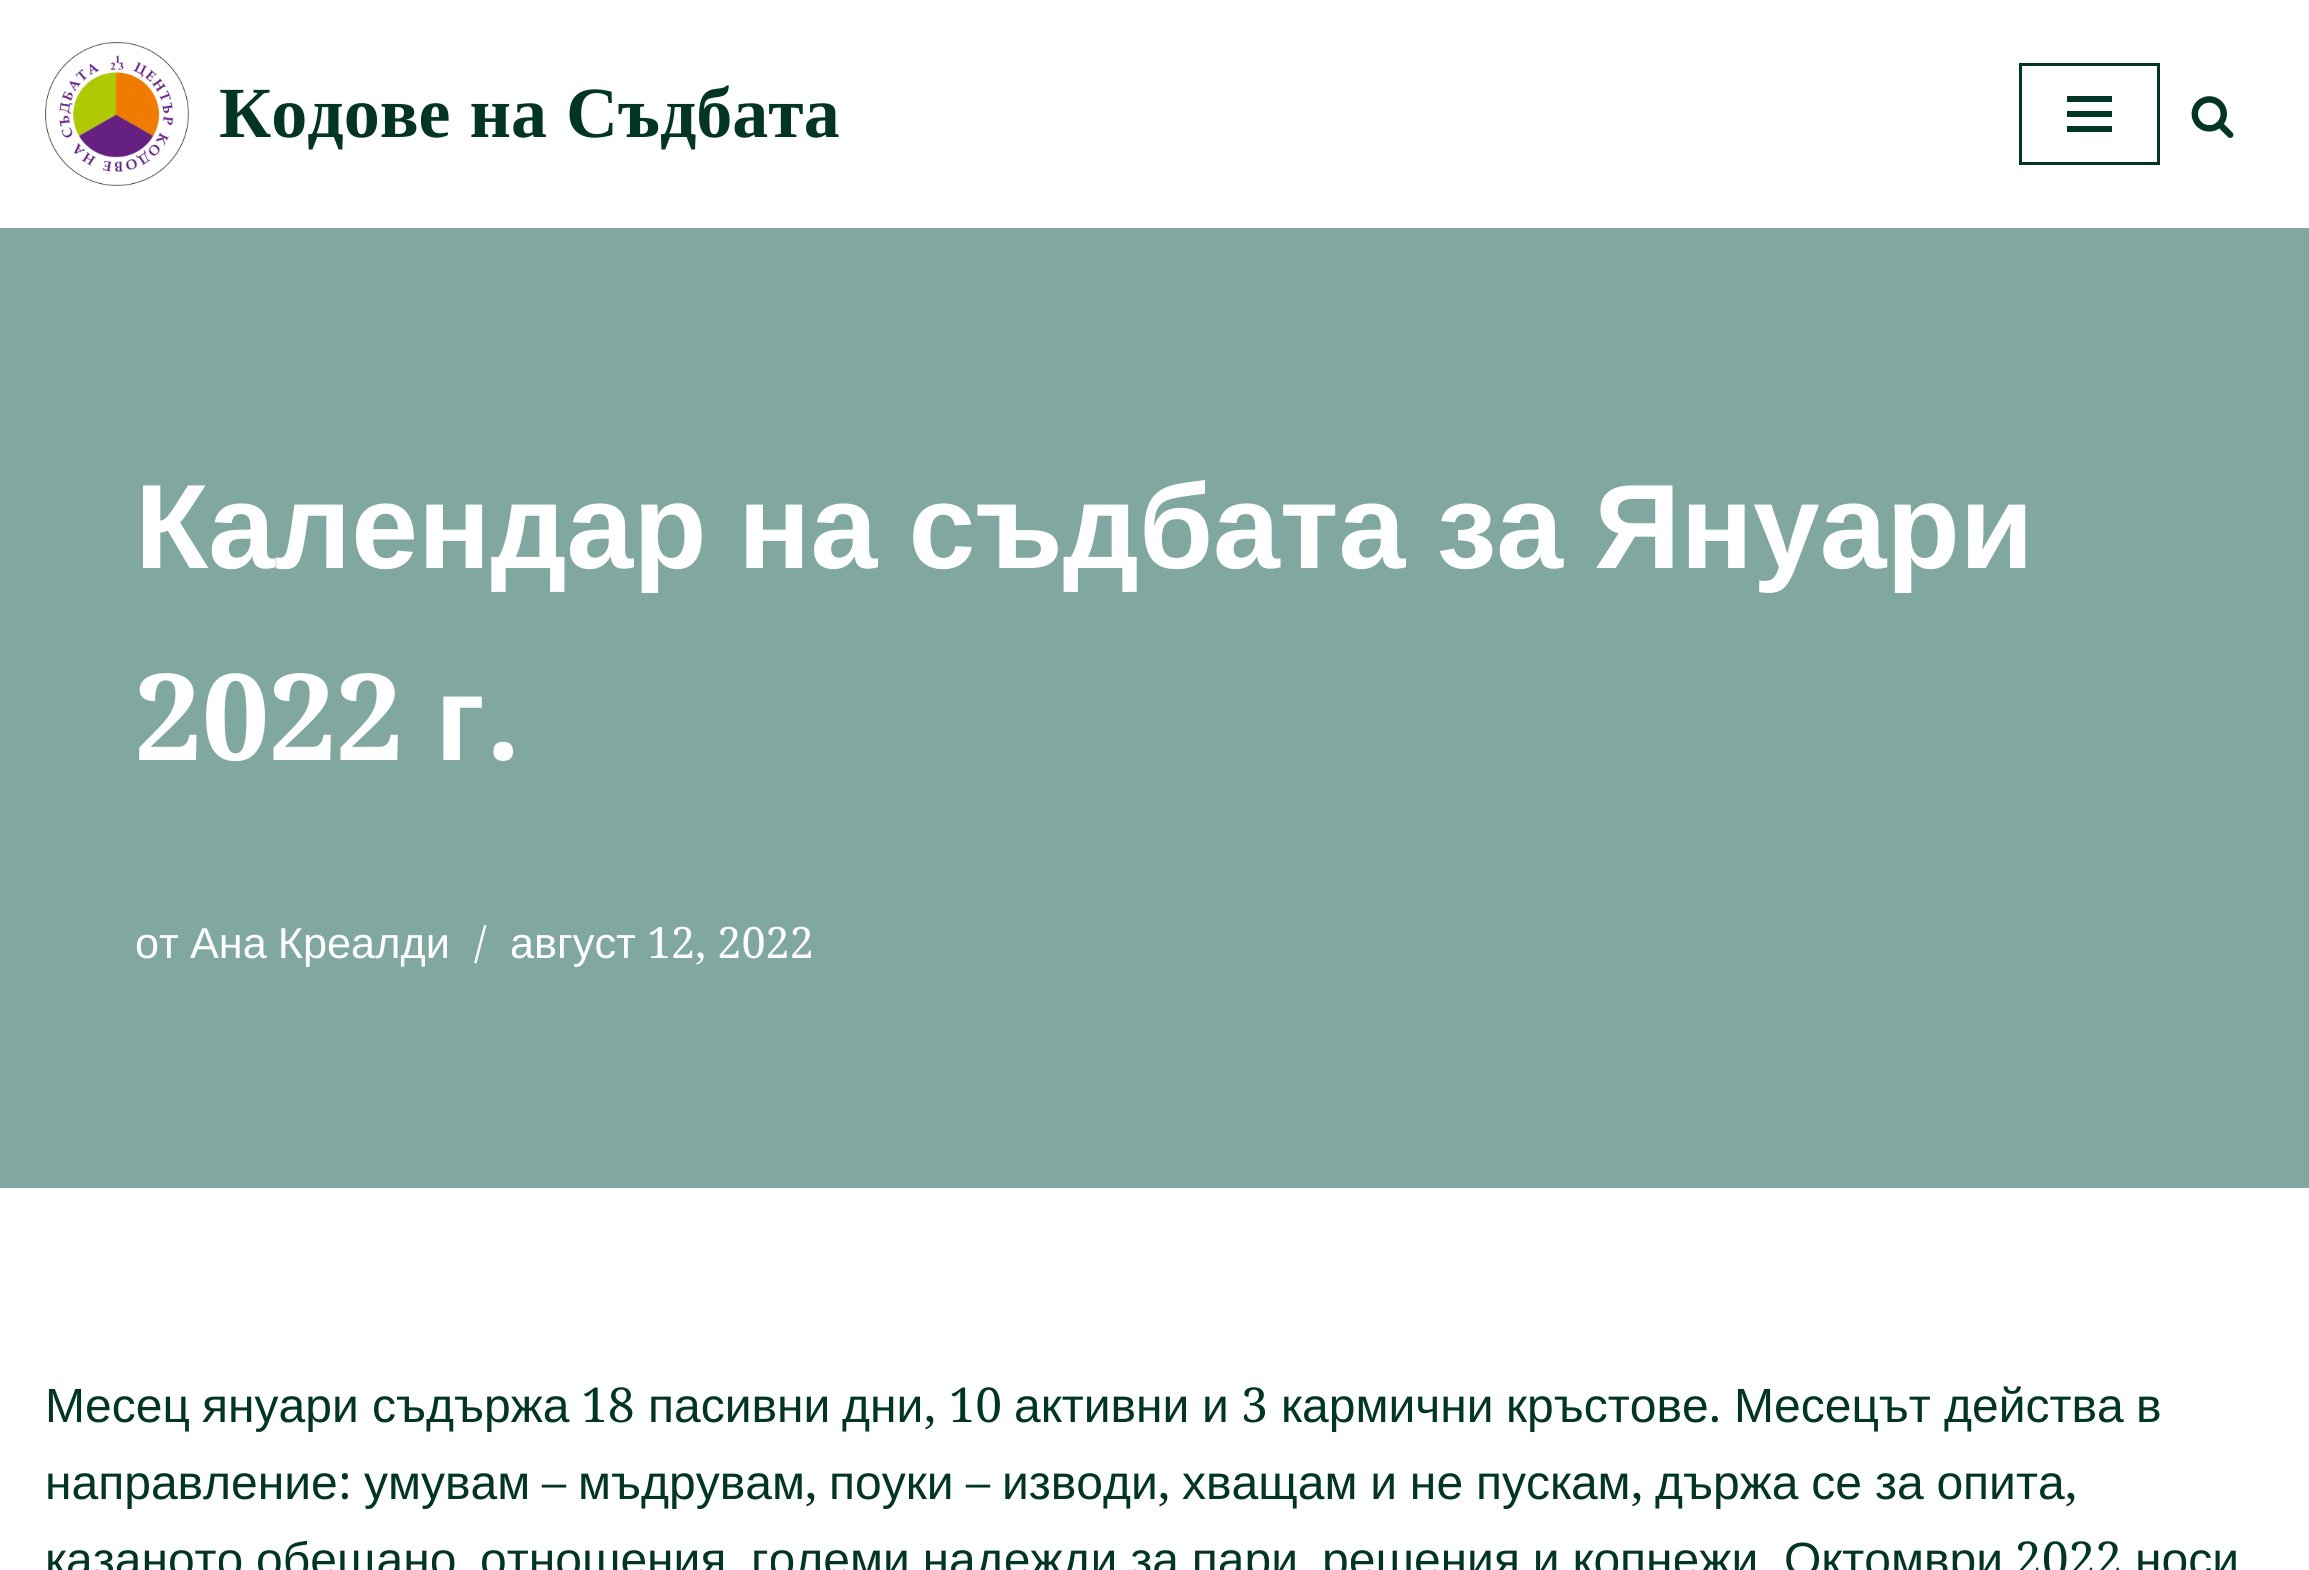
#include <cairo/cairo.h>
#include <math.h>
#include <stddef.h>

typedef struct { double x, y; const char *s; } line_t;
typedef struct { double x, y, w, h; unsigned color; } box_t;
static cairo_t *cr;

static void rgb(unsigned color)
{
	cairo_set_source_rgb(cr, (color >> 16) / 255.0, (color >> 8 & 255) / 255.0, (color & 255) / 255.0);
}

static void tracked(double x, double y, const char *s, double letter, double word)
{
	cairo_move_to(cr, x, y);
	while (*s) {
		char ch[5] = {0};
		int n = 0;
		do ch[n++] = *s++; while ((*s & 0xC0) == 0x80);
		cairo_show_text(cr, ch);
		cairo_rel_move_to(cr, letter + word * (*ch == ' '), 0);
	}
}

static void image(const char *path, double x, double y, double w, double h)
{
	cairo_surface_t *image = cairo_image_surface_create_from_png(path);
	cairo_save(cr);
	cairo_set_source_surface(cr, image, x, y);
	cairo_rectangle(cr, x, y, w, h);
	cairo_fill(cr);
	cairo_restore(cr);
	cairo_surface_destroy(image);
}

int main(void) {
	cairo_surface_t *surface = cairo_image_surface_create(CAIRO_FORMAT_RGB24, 2309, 1570);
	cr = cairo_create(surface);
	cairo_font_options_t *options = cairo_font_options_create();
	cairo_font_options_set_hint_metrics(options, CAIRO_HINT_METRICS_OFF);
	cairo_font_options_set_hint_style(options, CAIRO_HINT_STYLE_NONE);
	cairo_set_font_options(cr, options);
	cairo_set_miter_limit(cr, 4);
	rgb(0xffffff);
	cairo_paint(cr);
	rgb(0x80a7a0);
	cairo_rectangle(cr, 0, 228, 2309, 960);
	cairo_fill(cr);
	image("img/1.png", 45, 42, 144, 144);
	cairo_rectangle(cr, 2020.5, 64.5, 138, 99);
	rgb(0x023526);
	cairo_set_line_width(cr, 3);
	cairo_stroke(cr);
	{
		static const box_t items[] = {
			{2067, 96, 45, 6, 0x023526},
			{2067, 111, 45, 6, 0x023526},
			{2067, 126, 45, 6, 0x023526},
		};
		for (size_t i = 0; i < sizeof items / sizeof *items; i++) {
			rgb(items[i].color);
			cairo_rectangle(cr, items[i].x, items[i].y, items[i].w, items[i].h);
			cairo_fill(cr);
		}
	}
	image("img/2.png", 2191, 96, 43, 42);
	cairo_select_font_face(cr, "Liberation Serif", CAIRO_FONT_SLANT_NORMAL, CAIRO_FONT_WEIGHT_BOLD);
	cairo_set_font_size(cr, 72);
	tracked(219, 137, "Кодове на Съдбата", 0, 1);
	cairo_select_font_face(cr, "Liberation Sans", CAIRO_FONT_SLANT_NORMAL, CAIRO_FONT_WEIGHT_BOLD);
	cairo_set_font_size(cr, 120);
	rgb(0xffffff);
	tracked(135, 568, "Календар на съдбата за Януари", 0, -2);
	cairo_select_font_face(cr, "Droid Serif", CAIRO_FONT_SLANT_NORMAL, CAIRO_FONT_WEIGHT_BOLD);
	cairo_move_to(cr, 135, 760);
	cairo_show_text(cr, "2022");
	cairo_select_font_face(cr, "Liberation Sans", CAIRO_FONT_SLANT_NORMAL, CAIRO_FONT_WEIGHT_BOLD);
	cairo_move_to(cr, 435, 760);
	cairo_show_text(cr, "г");
	cairo_select_font_face(cr, "Droid Serif", CAIRO_FONT_SLANT_NORMAL, CAIRO_FONT_WEIGHT_BOLD);
	cairo_move_to(cr, 485, 760);
	cairo_show_text(cr, ".");
	cairo_select_font_face(cr, "Liberation Sans", CAIRO_FONT_SLANT_NORMAL, CAIRO_FONT_WEIGHT_NORMAL);
	cairo_set_font_size(cr, 43.25);
	cairo_move_to(cr, 135, 958);
	cairo_show_text(cr, "от");
	tracked(190, 958, "Ана Креалди", 0, -1);
	cairo_select_font_face(cr, "Droid Serif", CAIRO_FONT_SLANT_NORMAL, CAIRO_FONT_WEIGHT_NORMAL);
	cairo_move_to(cr, 474, 958);
	cairo_show_text(cr, "/");
	cairo_select_font_face(cr, "Liberation Sans", CAIRO_FONT_SLANT_NORMAL, CAIRO_FONT_WEIGHT_NORMAL);
	cairo_move_to(cr, 510, 958);
	cairo_show_text(cr, "август");
	cairo_select_font_face(cr, "Droid Serif", CAIRO_FONT_SLANT_NORMAL, CAIRO_FONT_WEIGHT_NORMAL);
	cairo_move_to(cr, 647, 958);
	cairo_show_text(cr, "12, 2022");
	cairo_select_font_face(cr, "Liberation Sans", CAIRO_FONT_SLANT_NORMAL, CAIRO_FONT_WEIGHT_NORMAL);
	cairo_set_font_size(cr, 48);
	rgb(0x023526);
	{
		static const line_t items[] = {
			{45, 1422, "Месец"},
			{202, 1422, "януари"},
			{372, 1422, "съдържа"},
		};
		for (size_t i = 0; i < sizeof items / sizeof *items; i++) {
			cairo_move_to(cr, items[i].x, items[i].y);
			cairo_show_text(cr, items[i].s);
		}
	}
	cairo_select_font_face(cr, "Droid Serif", CAIRO_FONT_SLANT_NORMAL, CAIRO_FONT_WEIGHT_NORMAL);
	cairo_move_to(cr, 581, 1422);
	cairo_show_text(cr, "18");
	cairo_select_font_face(cr, "Liberation Sans", CAIRO_FONT_SLANT_NORMAL, CAIRO_FONT_WEIGHT_NORMAL);
	cairo_move_to(cr, 648, 1422);
	cairo_show_text(cr, "пасивни");
	cairo_move_to(cr, 842, 1422);
	cairo_show_text(cr, "дни");
	cairo_select_font_face(cr, "Droid Serif", CAIRO_FONT_SLANT_NORMAL, CAIRO_FONT_WEIGHT_NORMAL);
	cairo_move_to(cr, 924, 1422);
	cairo_show_text(cr, ", 10");
	cairo_select_font_face(cr, "Liberation Sans", CAIRO_FONT_SLANT_NORMAL, CAIRO_FONT_WEIGHT_NORMAL);
	cairo_move_to(cr, 1014, 1422);
	cairo_show_text(cr, "активни");
	cairo_move_to(cr, 1202, 1422);
	cairo_show_text(cr, "и");
	cairo_select_font_face(cr, "Droid Serif", CAIRO_FONT_SLANT_NORMAL, CAIRO_FONT_WEIGHT_NORMAL);
	cairo_move_to(cr, 1241, 1422);
	cairo_show_text(cr, "3");
	cairo_select_font_face(cr, "Liberation Sans", CAIRO_FONT_SLANT_NORMAL, CAIRO_FONT_WEIGHT_NORMAL);
	cairo_move_to(cr, 1281, 1422);
	cairo_show_text(cr, "кармични");
	cairo_move_to(cr, 1506, 1422);
	cairo_show_text(cr, "кръстове");
	cairo_select_font_face(cr, "Droid Serif", CAIRO_FONT_SLANT_NORMAL, CAIRO_FONT_WEIGHT_NORMAL);
	cairo_move_to(cr, 1708, 1422);
	cairo_show_text(cr, ".");
	cairo_select_font_face(cr, "Liberation Sans", CAIRO_FONT_SLANT_NORMAL, CAIRO_FONT_WEIGHT_NORMAL);
	{
		static const line_t items[] = {
			{1734, 1422, "Месецът"},
			{1944, 1422, "действа"},
			{2136, 1422, "в"},
			{45, 1499, "направление"},
		};
		for (size_t i = 0; i < sizeof items / sizeof *items; i++) {
			cairo_move_to(cr, items[i].x, items[i].y);
			cairo_show_text(cr, items[i].s);
		}
	}
	cairo_select_font_face(cr, "Droid Serif", CAIRO_FONT_SLANT_NORMAL, CAIRO_FONT_WEIGHT_NORMAL);
	cairo_move_to(cr, 338, 1499);
	cairo_show_text(cr, ":");
	cairo_select_font_face(cr, "Liberation Sans", CAIRO_FONT_SLANT_NORMAL, CAIRO_FONT_WEIGHT_NORMAL);
	cairo_move_to(cr, 364, 1499);
	cairo_show_text(cr, "умувам");
	cairo_select_font_face(cr, "Droid Serif", CAIRO_FONT_SLANT_NORMAL, CAIRO_FONT_WEIGHT_NORMAL);
	cairo_move_to(cr, 542, 1499);
	cairo_show_text(cr, "–");
	cairo_select_font_face(cr, "Liberation Sans", CAIRO_FONT_SLANT_NORMAL, CAIRO_FONT_WEIGHT_NORMAL);
	cairo_move_to(cr, 578, 1499);
	cairo_show_text(cr, "мъдрувам");
	cairo_move_to(cr, 829, 1499);
	cairo_show_text(cr, "поуки");
	cairo_select_font_face(cr, "Droid Serif", CAIRO_FONT_SLANT_NORMAL, CAIRO_FONT_WEIGHT_NORMAL);
	cairo_move_to(cr, 966, 1499);
	cairo_show_text(cr, "–");
	cairo_select_font_face(cr, "Liberation Sans", CAIRO_FONT_SLANT_NORMAL, CAIRO_FONT_WEIGHT_NORMAL);
	cairo_move_to(cr, 1002, 1499);
	cairo_show_text(cr, "изводи");
	tracked(1182, 1499, "хващам и не пускам", 0, -0.5);
	tracked(1655, 1499, "държа се за опита", 0, -0.5);
	cairo_select_font_face(cr, "Droid Serif", CAIRO_FONT_SLANT_NORMAL, CAIRO_FONT_WEIGHT_NORMAL);
	{
		static const line_t items[] = {
			{805, 1499, ","},
			{1158, 1499, ","},
			{1631, 1499, ","},
			{2065, 1499, ","},
		};
		for (size_t i = 0; i < sizeof items / sizeof *items; i++) {
			cairo_move_to(cr, items[i].x, items[i].y);
			cairo_show_text(cr, items[i].s);
		}
	}
	cairo_select_font_face(cr, "Liberation Sans", CAIRO_FONT_SLANT_NORMAL, CAIRO_FONT_WEIGHT_NORMAL);
	tracked(45, 1576, "казаното обещано", 0, -0.5);
	cairo_move_to(cr, 480, 1576);
	cairo_show_text(cr, "отношения");
	tracked(751, 1576, "големи надежди за пари", 0, -0.5);
	tracked(1322, 1576, "решения и копнежи", 0, -0.5);
	cairo_move_to(cr, 1784, 1576);
	cairo_show_text(cr, "Октомври");
	cairo_select_font_face(cr, "Droid Serif", CAIRO_FONT_SLANT_NORMAL, CAIRO_FONT_WEIGHT_NORMAL);
	cairo_move_to(cr, 2015, 1576);
	cairo_show_text(cr, "2022");
	cairo_select_font_face(cr, "Liberation Sans", CAIRO_FONT_SLANT_NORMAL, CAIRO_FONT_WEIGHT_NORMAL);
	cairo_move_to(cr, 2135, 1576);
	cairo_show_text(cr, "носи");
	cairo_surface_write_to_png(surface, "page.png");
	cairo_font_options_destroy(options);
	cairo_destroy(cr);
	cairo_surface_destroy(surface);
	return 0;
}
